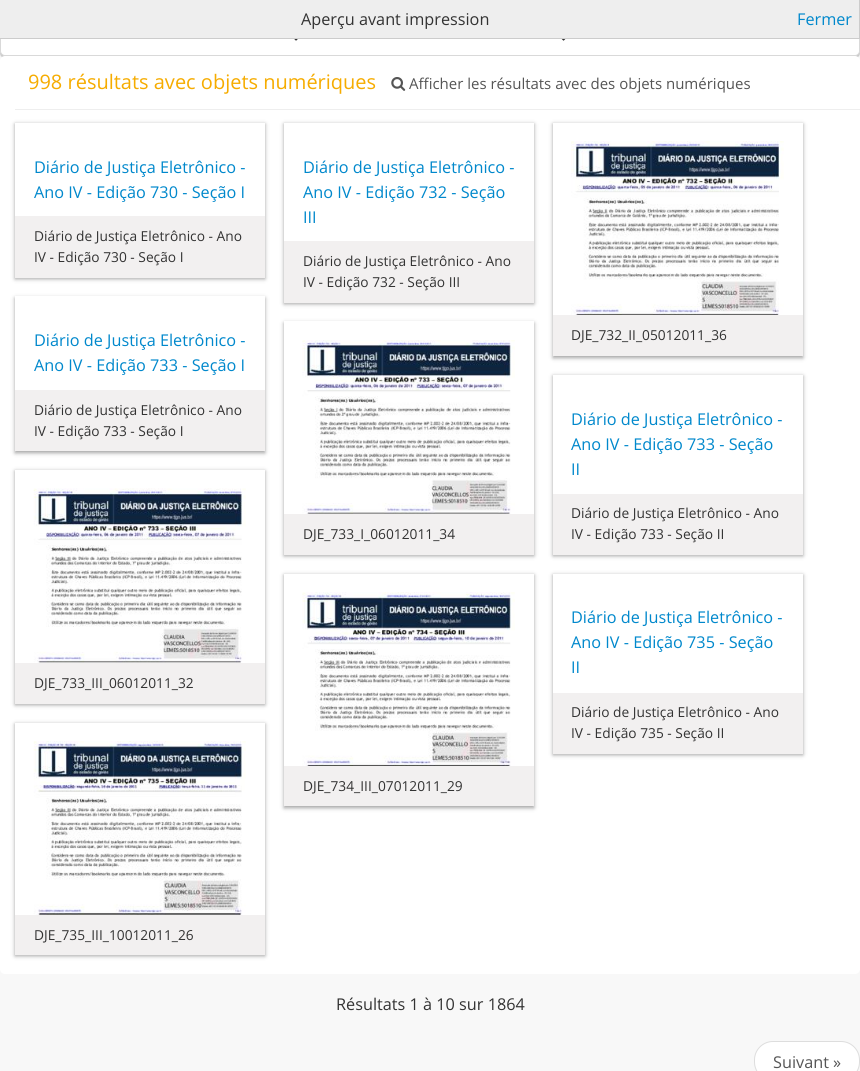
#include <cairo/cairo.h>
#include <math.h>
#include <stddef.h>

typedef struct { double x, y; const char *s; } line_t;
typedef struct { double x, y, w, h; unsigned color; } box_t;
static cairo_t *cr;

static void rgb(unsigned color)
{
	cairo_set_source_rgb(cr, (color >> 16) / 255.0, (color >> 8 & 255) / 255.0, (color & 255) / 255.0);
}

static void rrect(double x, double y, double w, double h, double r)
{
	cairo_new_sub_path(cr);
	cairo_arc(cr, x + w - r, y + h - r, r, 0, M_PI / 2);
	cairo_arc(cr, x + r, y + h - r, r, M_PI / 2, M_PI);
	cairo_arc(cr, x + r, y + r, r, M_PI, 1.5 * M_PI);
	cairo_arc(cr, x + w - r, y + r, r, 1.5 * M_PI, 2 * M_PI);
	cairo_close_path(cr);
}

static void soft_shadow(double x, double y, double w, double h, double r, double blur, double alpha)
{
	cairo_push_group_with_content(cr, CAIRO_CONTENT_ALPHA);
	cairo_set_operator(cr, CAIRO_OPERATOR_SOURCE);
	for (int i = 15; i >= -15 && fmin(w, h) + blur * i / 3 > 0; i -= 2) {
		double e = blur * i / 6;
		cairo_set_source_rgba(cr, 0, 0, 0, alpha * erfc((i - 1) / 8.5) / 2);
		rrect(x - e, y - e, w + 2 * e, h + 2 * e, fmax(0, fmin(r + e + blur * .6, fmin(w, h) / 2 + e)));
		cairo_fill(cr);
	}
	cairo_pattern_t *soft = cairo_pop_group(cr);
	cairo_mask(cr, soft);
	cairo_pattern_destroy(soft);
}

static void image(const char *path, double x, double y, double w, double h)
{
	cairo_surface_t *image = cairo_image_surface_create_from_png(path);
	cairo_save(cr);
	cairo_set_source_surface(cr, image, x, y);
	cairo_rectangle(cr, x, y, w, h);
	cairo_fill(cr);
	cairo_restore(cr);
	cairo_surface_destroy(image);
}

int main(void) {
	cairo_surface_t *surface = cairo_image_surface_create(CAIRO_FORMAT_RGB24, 860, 1071);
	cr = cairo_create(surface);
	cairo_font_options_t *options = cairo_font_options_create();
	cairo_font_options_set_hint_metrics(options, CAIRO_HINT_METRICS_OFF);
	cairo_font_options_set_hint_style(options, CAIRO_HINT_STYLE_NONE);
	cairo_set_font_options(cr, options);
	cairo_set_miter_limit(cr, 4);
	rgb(0xf8f8f8);
	cairo_paint(cr);
	rgb(0x000000);
	soft_shadow(0, 18, 860, 40, 5, 0.5, 0.2);
	rgb(0xffffff);
	rrect(0.5, 16.5, 859, 39, 4.5);
	cairo_fill_preserve(cr);
	rgb(0xd9d9d9);
	cairo_set_line_width(cr, 1);
	cairo_stroke(cr);
	{
		static const box_t items[] = {
			{0, 0, 859, 38, 0xeeeeee},
			{859, 0, 1, 39, 0xcccccc},
			{0, 38, 860, 1, 0xcccccc},
		};
		for (size_t i = 0; i < sizeof items / sizeof *items; i++) {
			rgb(items[i].color);
			cairo_rectangle(cr, items[i].x, items[i].y, items[i].w, items[i].h);
			cairo_fill(cr);
		}
	}
	image("img/1.png", 294, 39, 4, 2);
	image("img/2.png", 561, 39, 5, 2);
	rgb(0xffffff);
	rrect(0, 56, 860, 918, 5);
	cairo_fill(cr);
	rgb(0xeeeeee);
	cairo_rectangle(cr, 15, 109, 845, 1);
	cairo_fill(cr);
	image("img/3.png", 391, 77, 15, 14);
	rgb(0x191919);
	soft_shadow(15, 124, 250, 155, 0, 2, 0.4);
	rgb(0xffffff);
	cairo_rectangle(cr, 15, 123, 250, 93);
	cairo_fill(cr);
	rgb(0xf2f0f0);
	cairo_rectangle(cr, 15, 216, 250, 62);
	cairo_fill(cr);
	rgb(0x191919);
	soft_shadow(284, 124, 250, 180, 0, 2, 0.4);
	rgb(0xffffff);
	cairo_rectangle(cr, 284, 123, 250, 118);
	cairo_fill(cr);
	rgb(0xf2f0f0);
	cairo_rectangle(cr, 284, 241, 250, 62);
	cairo_fill(cr);
	rgb(0x191919);
	soft_shadow(15, 298, 250, 155, 0, 2, 0.4);
	rgb(0xffffff);
	cairo_rectangle(cr, 15, 296, 250, 94);
	cairo_fill(cr);
	rgb(0xf2f0f0);
	cairo_rectangle(cr, 15, 390, 250, 61);
	cairo_fill(cr);
	rgb(0x191919);
	soft_shadow(553, 124, 250, 234, 0, 2, 0.4);
	rgb(0xffffff);
	cairo_rectangle(cr, 553, 123, 250, 192);
	cairo_fill(cr);
	image("img/4.png", 571, 141, 213, 174);
	rgb(0xf2f0f0);
	cairo_rectangle(cr, 553, 315, 250, 41);
	cairo_fill(cr);
	rgb(0x191919);
	soft_shadow(284, 323, 250, 233, 0, 2, 0.4);
	rgb(0xffffff);
	cairo_rectangle(cr, 284, 321, 250, 193);
	cairo_fill(cr);
	image("img/5.png", 302, 340, 213, 174);
	rgb(0xf2f0f0);
	cairo_rectangle(cr, 284, 514, 250, 41);
	cairo_fill(cr);
	rgb(0x191919);
	soft_shadow(553, 376, 250, 180, 0, 2, 0.4);
	rgb(0xffffff);
	cairo_rectangle(cr, 553, 375, 250, 119);
	cairo_fill(cr);
	rgb(0xf2f0f0);
	cairo_rectangle(cr, 553, 494, 250, 61);
	cairo_fill(cr);
	rgb(0x191919);
	soft_shadow(15, 471, 250, 234, 0, 2, 0.4);
	rgb(0xffffff);
	cairo_rectangle(cr, 15, 470, 250, 193);
	cairo_fill(cr);
	image("img/6.png", 33, 488, 213, 175);
	rgb(0xf2f0f0);
	cairo_rectangle(cr, 15, 663, 250, 41);
	cairo_fill(cr);
	rgb(0x191919);
	soft_shadow(553, 575, 250, 180, 0, 2, 0.4);
	rgb(0xffffff);
	cairo_rectangle(cr, 553, 574, 250, 119);
	cairo_fill(cr);
	rgb(0xf2f0f0);
	cairo_rectangle(cr, 553, 693, 250, 61);
	cairo_fill(cr);
	rgb(0x191919);
	soft_shadow(284, 575, 250, 233, 0, 2, 0.4);
	rgb(0xffffff);
	cairo_rectangle(cr, 284, 574, 250, 192);
	cairo_fill(cr);
	image("img/7.png", 302, 592, 213, 174);
	rgb(0xf2f0f0);
	cairo_rectangle(cr, 284, 766, 250, 40);
	cairo_fill(cr);
	cairo_save(cr);
	cairo_set_fill_rule(cr, CAIRO_FILL_RULE_EVEN_ODD);
	cairo_new_path(cr);
	cairo_move_to(cr, 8, 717);
	cairo_line_to(cr, 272, 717);
	cairo_line_to(cr, 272, 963);
	cairo_line_to(cr, 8, 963);
	cairo_close_path(cr);
	cairo_move_to(cr, 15, 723);
	cairo_line_to(cr, 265, 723);
	cairo_line_to(cr, 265, 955);
	cairo_line_to(cr, 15, 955);
	cairo_close_path(cr);
	cairo_clip(cr);
	rgb(0x191919);
	soft_shadow(15, 724, 250, 232, 0, 2, 0.4);
	cairo_restore(cr);
	image("img/8.png", 33, 741, 213, 174);
	cairo_rectangle(cr, 15, 915, 250, 40);
	cairo_fill(cr);
	rgb(0xffffff);
	rrect(754.5, 1041.5, 105, 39, 18.5);
	cairo_fill_preserve(cr);
	rgb(0xdddddd);
	cairo_stroke(cr);
	cairo_select_font_face(cr, "Open Sans", CAIRO_FONT_SLANT_NORMAL, CAIRO_FONT_WEIGHT_NORMAL);
	cairo_set_font_size(cr, 16.25);
	rgb(0x333333);
	cairo_move_to(cr, 301, 25);
	cairo_show_text(cr, "Aperçu avant impression");
	rgb(0x0088cc);
	cairo_move_to(cr, 797, 25);
	cairo_show_text(cr, "Fermer");
	cairo_set_font_size(cr, 20);
	rgb(0xf6ac00);
	cairo_move_to(cr, 28, 89);
	cairo_show_text(cr, "998 résultats avec objets numériques");
	cairo_set_font_size(cr, 15);
	rgb(0x555555);
	cairo_move_to(cr, 409, 89);
	cairo_show_text(cr, "Afficher les résultats avec des objets numériques");
	cairo_set_font_size(cr, 16.25);
	rgb(0x0088cc);
	cairo_move_to(cr, 34, 173);
	cairo_show_text(cr, "Diário de Justiça Eletrônico -");
	cairo_move_to(cr, 34, 198);
	cairo_show_text(cr, "Ano IV - Edição 730 - Seção I");
	cairo_set_font_size(cr, 13.75);
	rgb(0x333333);
	cairo_move_to(cr, 34, 241);
	cairo_show_text(cr, "Diário de Justiça Eletrônico - Ano");
	cairo_move_to(cr, 34, 262);
	cairo_show_text(cr, "IV - Edição 730 - Seção I");
	cairo_set_font_size(cr, 16.25);
	rgb(0x0088cc);
	{
		static const line_t items[] = {
			{303, 173, "Diário de Justiça Eletrônico -"},
			{303, 198, "Ano IV - Edição 732 - Seção"},
			{303, 223, "III"},
		};
		for (size_t i = 0; i < sizeof items / sizeof *items; i++) {
			cairo_move_to(cr, items[i].x, items[i].y);
			cairo_show_text(cr, items[i].s);
		}
	}
	cairo_set_font_size(cr, 13.75);
	rgb(0x333333);
	cairo_move_to(cr, 303, 266);
	cairo_show_text(cr, "Diário de Justiça Eletrônico - Ano");
	cairo_move_to(cr, 303, 287);
	cairo_show_text(cr, "IV - Edição 732 - Seção III");
	cairo_set_font_size(cr, 16.25);
	rgb(0x0088cc);
	cairo_move_to(cr, 34, 346);
	cairo_show_text(cr, "Diário de Justiça Eletrônico -");
	cairo_move_to(cr, 34, 371);
	cairo_show_text(cr, "Ano IV - Edição 733 - Seção I");
	cairo_set_font_size(cr, 13.75);
	rgb(0x333333);
	{
		static const line_t items[] = {
			{34, 415, "Diário de Justiça Eletrônico - Ano"},
			{34, 436, "IV - Edição 733 - Seção I"},
			{571, 340, "DJE_732_II_05012011_36"},
			{303, 539, "DJE_733_I_06012011_34"},
		};
		for (size_t i = 0; i < sizeof items / sizeof *items; i++) {
			cairo_move_to(cr, items[i].x, items[i].y);
			cairo_show_text(cr, items[i].s);
		}
	}
	cairo_set_font_size(cr, 16.25);
	rgb(0x0088cc);
	{
		static const line_t items[] = {
			{571, 425, "Diário de Justiça Eletrônico -"},
			{571, 450, "Ano IV - Edição 733 - Seção"},
			{571, 475, "II"},
		};
		for (size_t i = 0; i < sizeof items / sizeof *items; i++) {
			cairo_move_to(cr, items[i].x, items[i].y);
			cairo_show_text(cr, items[i].s);
		}
	}
	cairo_set_font_size(cr, 13.75);
	rgb(0x333333);
	{
		static const line_t items[] = {
			{571, 518, "Diário de Justiça Eletrônico - Ano"},
			{571, 539, "IV - Edição 733 - Seção II"},
			{34, 688, "DJE_733_III_06012011_32"},
		};
		for (size_t i = 0; i < sizeof items / sizeof *items; i++) {
			cairo_move_to(cr, items[i].x, items[i].y);
			cairo_show_text(cr, items[i].s);
		}
	}
	cairo_set_font_size(cr, 16.25);
	rgb(0x0088cc);
	{
		static const line_t items[] = {
			{571, 623, "Diário de Justiça Eletrônico -"},
			{571, 648, "Ano IV - Edição 735 - Seção"},
			{571, 673, "II"},
		};
		for (size_t i = 0; i < sizeof items / sizeof *items; i++) {
			cairo_move_to(cr, items[i].x, items[i].y);
			cairo_show_text(cr, items[i].s);
		}
	}
	cairo_set_font_size(cr, 13.75);
	rgb(0x333333);
	{
		static const line_t items[] = {
			{571, 717, "Diário de Justiça Eletrônico - Ano"},
			{571, 738, "IV - Edição 735 - Seção II"},
			{303, 791, "DJE_734_III_07012011_29"},
			{34, 940, "DJE_735_III_10012011_26"},
		};
		for (size_t i = 0; i < sizeof items / sizeof *items; i++) {
			cairo_move_to(cr, items[i].x, items[i].y);
			cairo_show_text(cr, items[i].s);
		}
	}
	cairo_set_font_size(cr, 16.25);
	cairo_move_to(cr, 336, 1010);
	cairo_show_text(cr, "Résultats 1 à 10 sur 1864");
	rgb(0x555555);
	cairo_move_to(cr, 773, 1068);
	cairo_show_text(cr, "Suivant »");
	cairo_surface_write_to_png(surface, "page.png");
	cairo_font_options_destroy(options);
	cairo_destroy(cr);
	cairo_surface_destroy(surface);
	return 0;
}
